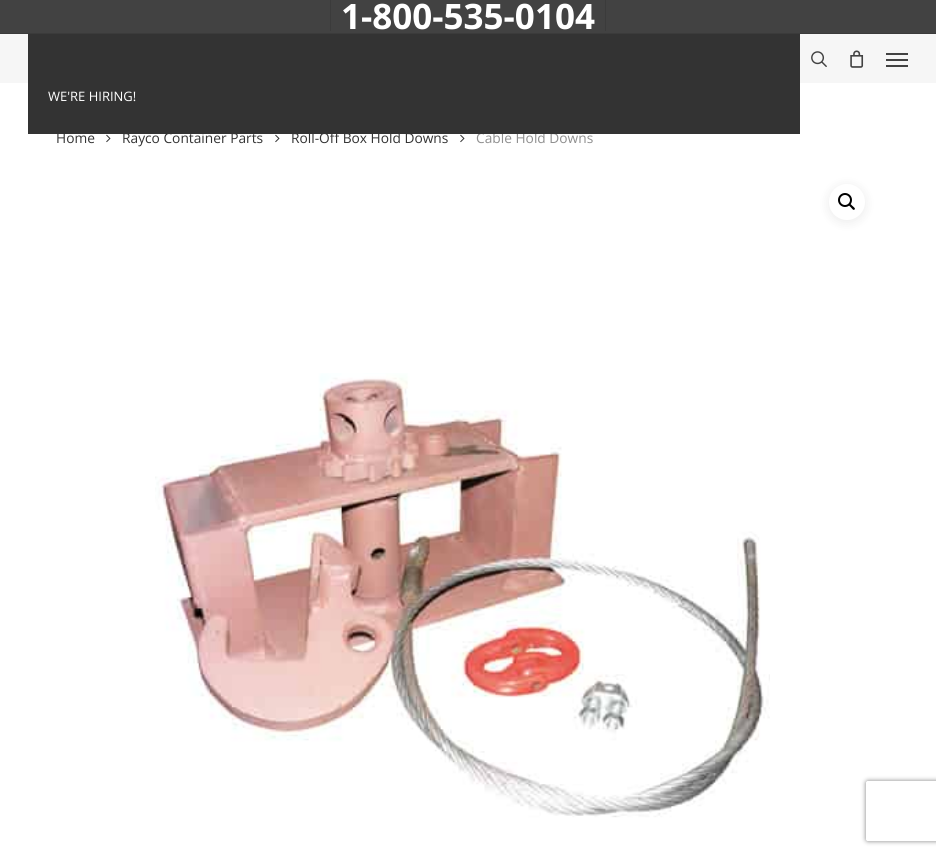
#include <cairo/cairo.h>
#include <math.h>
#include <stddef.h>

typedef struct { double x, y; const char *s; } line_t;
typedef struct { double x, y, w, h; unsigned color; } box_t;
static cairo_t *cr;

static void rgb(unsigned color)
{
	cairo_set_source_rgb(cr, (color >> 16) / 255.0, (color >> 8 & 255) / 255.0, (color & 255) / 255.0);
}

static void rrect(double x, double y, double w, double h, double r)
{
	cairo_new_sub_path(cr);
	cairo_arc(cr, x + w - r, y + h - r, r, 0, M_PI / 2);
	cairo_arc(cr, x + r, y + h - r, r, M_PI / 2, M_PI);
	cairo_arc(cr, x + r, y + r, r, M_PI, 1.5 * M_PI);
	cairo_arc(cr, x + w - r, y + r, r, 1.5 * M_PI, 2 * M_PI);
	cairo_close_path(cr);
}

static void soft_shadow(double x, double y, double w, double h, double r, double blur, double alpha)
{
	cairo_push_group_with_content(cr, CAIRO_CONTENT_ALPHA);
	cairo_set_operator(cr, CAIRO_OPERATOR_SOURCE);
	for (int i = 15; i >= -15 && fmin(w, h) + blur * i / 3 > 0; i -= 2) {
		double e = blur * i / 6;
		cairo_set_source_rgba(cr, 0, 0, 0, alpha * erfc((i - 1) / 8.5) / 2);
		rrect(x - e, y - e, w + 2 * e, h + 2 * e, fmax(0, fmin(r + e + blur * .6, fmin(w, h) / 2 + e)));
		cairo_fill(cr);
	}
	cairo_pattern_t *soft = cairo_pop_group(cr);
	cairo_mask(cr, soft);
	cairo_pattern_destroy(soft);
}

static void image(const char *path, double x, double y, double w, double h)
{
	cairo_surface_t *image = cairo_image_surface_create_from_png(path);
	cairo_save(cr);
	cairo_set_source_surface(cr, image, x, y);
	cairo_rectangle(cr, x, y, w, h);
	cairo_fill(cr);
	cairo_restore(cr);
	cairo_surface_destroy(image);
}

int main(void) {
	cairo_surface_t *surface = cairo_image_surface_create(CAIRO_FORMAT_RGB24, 936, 855);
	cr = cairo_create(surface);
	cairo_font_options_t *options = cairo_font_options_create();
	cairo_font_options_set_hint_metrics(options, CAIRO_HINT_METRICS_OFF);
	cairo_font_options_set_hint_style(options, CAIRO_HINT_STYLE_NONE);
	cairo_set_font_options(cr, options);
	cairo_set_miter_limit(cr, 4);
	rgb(0xffffff);
	cairo_paint(cr);
	{
		static const box_t items[] = {
			{0, 34, 936, 49, 0xf6f6f6},
			{0, 0, 936, 33, 0x424242},
			{0, 33, 936, 1, 0x3b3b3b},
			{605, 0, 1, 31, 0x3b3b3b},
			{330, 0, 1, 31, 0x3b3b3b},
		};
		for (size_t i = 0; i < sizeof items / sizeof *items; i++) {
			rgb(items[i].color);
			cairo_rectangle(cr, items[i].x, items[i].y, items[i].w, items[i].h);
			cairo_fill(cr);
		}
	}
	image("img/1.png", 811, 51, 16, 16);
	image("img/2.png", 850, 50, 14, 18);
	{
		static const box_t items[] = {
			{886, 53, 22, 2, 0x424242},
			{886, 65, 22, 2, 0x424242},
			{886, 59, 22, 2, 0x424242},
		};
		for (size_t i = 0; i < sizeof items / sizeof *items; i++) {
			rgb(items[i].color);
			cairo_rectangle(cr, items[i].x, items[i].y, items[i].w, items[i].h);
			cairo_fill(cr);
		}
	}
	image("img/3.png", 106, 134, 5, 9);
	image("img/3.png", 275, 134, 5, 9);
	image("img/3.png", 460, 134, 5, 9);
	rgb(0x000000);
	soft_shadow(829, 186, 36, 36, 18, 6, 0.08);
	rgb(0xffffff);
	cairo_arc(cr, 847, 202, 18, 0, 2 * M_PI);
	cairo_fill(cr);
	cairo_arc(cr, 845, 200, 6, 0, 2 * M_PI);
	rgb(0x000000);
	cairo_stroke(cr);
	cairo_new_path(cr);
	cairo_move_to(cr, 849, 204);
	cairo_curve_to(cr, 850, 203, 852, 205.5, 852.5, 206);
	cairo_curve_to(cr, 853, 206.5, 856, 208.5, 854.5, 209.5);
	cairo_curve_to(cr, 853.5, 211, 851.5, 208, 851, 207.5);
	cairo_curve_to(cr, 850.5, 207, 848, 205, 849, 204);
	cairo_close_path(cr);
	cairo_fill(cr);
	image("img/4.png", 155, 373, 615, 445);
	cairo_save(cr);
	cairo_set_fill_rule(cr, CAIRO_FILL_RULE_EVEN_ODD);
	cairo_new_path(cr);
	cairo_move_to(cr, 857, 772);
	cairo_line_to(cr, 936, 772);
	cairo_line_to(cr, 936, 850);
	cairo_line_to(cr, 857, 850);
	cairo_close_path(cr);
	cairo_move_to(cr, 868, 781);
	cairo_line_to(cr, 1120, 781);
	cairo_curve_to(cr, 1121, 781, 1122, 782, 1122, 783);
	cairo_line_to(cr, 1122, 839);
	cairo_curve_to(cr, 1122, 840, 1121, 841, 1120, 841);
	cairo_line_to(cr, 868, 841);
	cairo_curve_to(cr, 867, 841, 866, 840, 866, 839);
	cairo_line_to(cr, 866, 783);
	cairo_curve_to(cr, 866, 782, 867, 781, 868, 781);
	cairo_close_path(cr);
	cairo_clip(cr);
	rgb(0x808080);
	soft_shadow(866, 781, 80, 60, 2, 2.5, 1);
	cairo_restore(cr);
	cairo_select_font_face(cr, "Open Sans", CAIRO_FONT_SLANT_NORMAL, CAIRO_FONT_WEIGHT_BOLD);
	cairo_set_font_size(cr, 35);
	rgb(0xffffff);
	cairo_move_to(cr, 341, 29);
	cairo_show_text(cr, "1-800-535-0104");
	cairo_select_font_face(cr, "Open Sans", CAIRO_FONT_SLANT_NORMAL, CAIRO_FONT_WEIGHT_NORMAL);
	cairo_set_font_size(cr, 13.75);
	rgb(0x333333);
	{
		static const line_t items[] = {
			{56, 143, "Home"},
			{122, 143, "Rayco Container Parts"},
			{291, 143, "Roll-Off Box Hold Downs"},
		};
		for (size_t i = 0; i < sizeof items / sizeof *items; i++) {
			cairo_move_to(cr, items[i].x, items[i].y);
			cairo_show_text(cr, items[i].s);
		}
	}
	rgb(0x8f8f8f);
	cairo_move_to(cr, 476, 143);
	cairo_show_text(cr, "Cable Hold Downs");
	rgb(0x333333);
	cairo_rectangle(cr, 28, 34, 772, 100);
	cairo_fill(cr);
	cairo_set_font_size(cr, 13);
	rgb(0xffffff);
	cairo_move_to(cr, 48, 101);
	cairo_show_text(cr, "WE'RE HIRING!");
	cairo_surface_write_to_png(surface, "page.png");
	cairo_font_options_destroy(options);
	cairo_destroy(cr);
	cairo_surface_destroy(surface);
	return 0;
}
